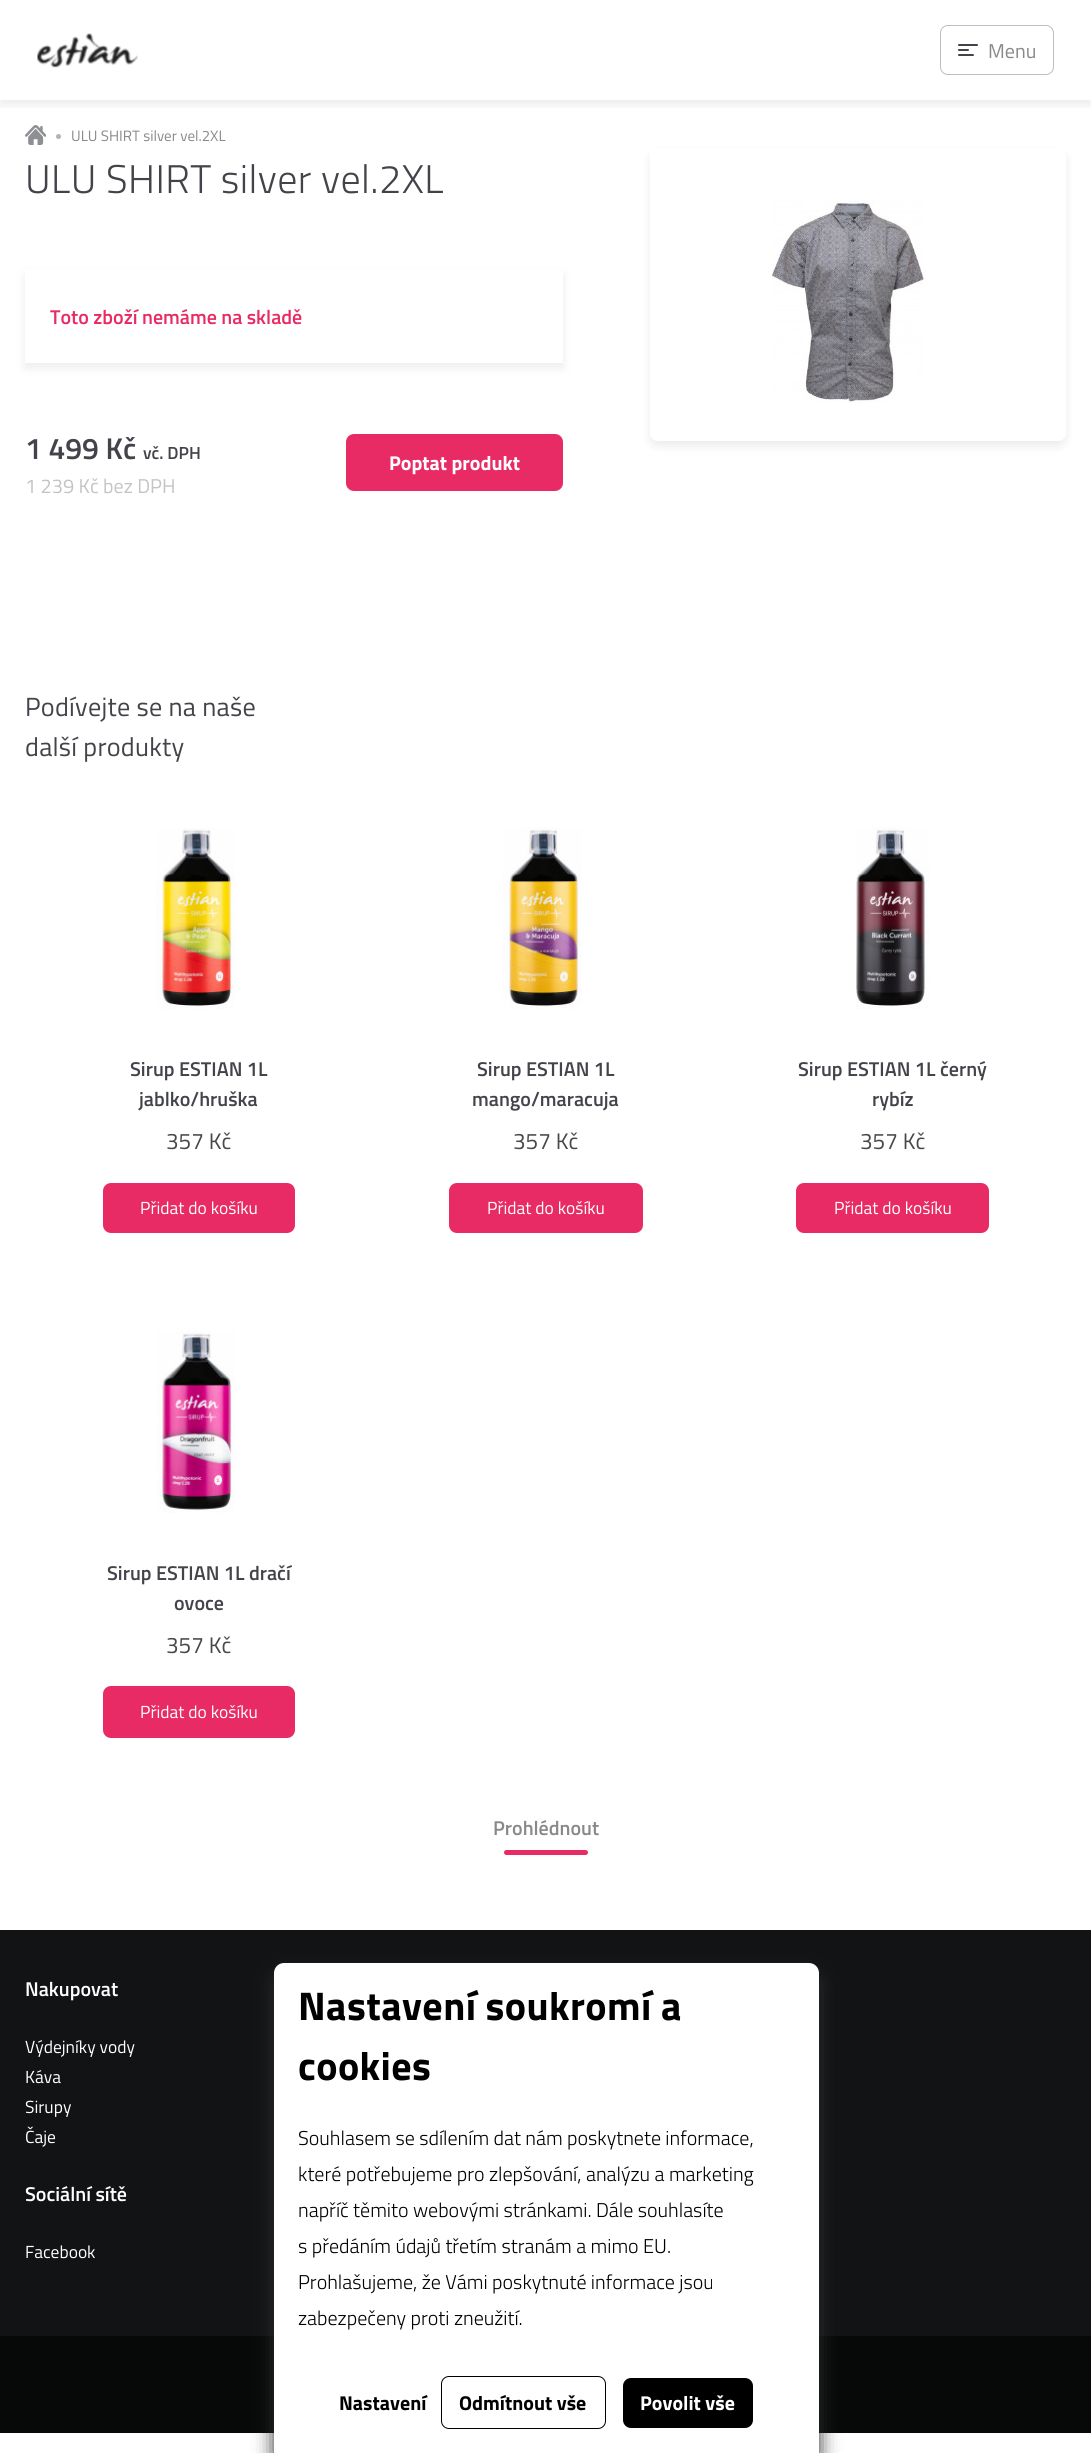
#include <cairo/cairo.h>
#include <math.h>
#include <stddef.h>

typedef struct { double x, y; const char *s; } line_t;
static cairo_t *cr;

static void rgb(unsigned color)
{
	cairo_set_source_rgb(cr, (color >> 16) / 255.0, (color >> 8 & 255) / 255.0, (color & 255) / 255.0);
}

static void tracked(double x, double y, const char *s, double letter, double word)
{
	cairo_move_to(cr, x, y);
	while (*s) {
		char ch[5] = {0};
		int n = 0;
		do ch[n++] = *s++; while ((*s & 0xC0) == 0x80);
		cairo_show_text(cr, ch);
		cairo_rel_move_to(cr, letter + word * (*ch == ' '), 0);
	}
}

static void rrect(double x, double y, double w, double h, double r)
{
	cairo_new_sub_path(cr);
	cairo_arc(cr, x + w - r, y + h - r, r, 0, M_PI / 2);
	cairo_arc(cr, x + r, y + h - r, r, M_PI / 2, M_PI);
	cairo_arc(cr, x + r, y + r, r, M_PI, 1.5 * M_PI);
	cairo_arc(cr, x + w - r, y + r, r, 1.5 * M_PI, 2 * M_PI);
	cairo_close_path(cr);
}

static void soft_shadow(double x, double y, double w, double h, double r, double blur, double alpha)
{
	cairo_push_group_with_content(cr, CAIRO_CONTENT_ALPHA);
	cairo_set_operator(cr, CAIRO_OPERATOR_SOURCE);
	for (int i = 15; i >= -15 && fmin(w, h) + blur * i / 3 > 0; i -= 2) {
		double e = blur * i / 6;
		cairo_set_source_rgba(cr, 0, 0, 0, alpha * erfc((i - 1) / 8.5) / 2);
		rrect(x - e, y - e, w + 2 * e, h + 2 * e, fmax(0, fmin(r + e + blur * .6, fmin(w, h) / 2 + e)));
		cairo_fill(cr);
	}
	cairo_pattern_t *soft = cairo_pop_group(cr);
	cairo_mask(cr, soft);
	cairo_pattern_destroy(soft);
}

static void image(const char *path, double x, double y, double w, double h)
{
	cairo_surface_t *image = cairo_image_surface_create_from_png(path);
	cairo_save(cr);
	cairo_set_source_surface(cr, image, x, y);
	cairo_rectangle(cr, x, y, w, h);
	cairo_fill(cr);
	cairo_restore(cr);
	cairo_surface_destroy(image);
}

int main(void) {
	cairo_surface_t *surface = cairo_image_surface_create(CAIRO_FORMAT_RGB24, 1091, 2453);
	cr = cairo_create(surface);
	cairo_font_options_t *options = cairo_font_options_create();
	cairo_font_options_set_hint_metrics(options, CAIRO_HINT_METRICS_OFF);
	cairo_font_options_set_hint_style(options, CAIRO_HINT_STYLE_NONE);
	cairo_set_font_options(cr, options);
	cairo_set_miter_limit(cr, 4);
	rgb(0xffffff);
	cairo_paint(cr);
	cairo_save(cr);
	cairo_rectangle(cr, 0, 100, 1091, 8);
	cairo_clip(cr);
	rgb(0x000000);
	soft_shadow(0, 5, 1091, 100, 0, 5, 0.08);
	cairo_restore(cr);
	image("img/1.png", 37, 33, 101, 35);
	rrect(940.5, 25.5, 113, 49, 7.5);
	rgb(0xbebebe);
	cairo_set_line_width(cr, 1);
	cairo_stroke(cr);
	rgb(0x42444a);
	rrect(958, 44, 20, 2, 1);
	cairo_fill(cr);
	rrect(958, 49, 11, 2, 1);
	cairo_fill(cr);
	rrect(958, 54, 16, 2, 1);
	cairo_fill(cr);
	image("img/2.png", 25, 125, 21, 20);
	rgb(0xb3b3b4);
	cairo_arc(cr, 58.5, 136.5, 2.5, 0, 2 * M_PI);
	cairo_fill(cr);
	cairo_save(cr);
	cairo_set_fill_rule(cr, CAIRO_FILL_RULE_EVEN_ODD);
	cairo_new_path(cr);
	cairo_move_to(cr, 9, 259);
	cairo_line_to(cr, 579, 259);
	cairo_line_to(cr, 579, 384);
	cairo_line_to(cr, 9, 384);
	cairo_close_path(cr);
	cairo_move_to(cr, 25, 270);
	cairo_line_to(cr, 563, 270);
	cairo_line_to(cr, 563, 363);
	cairo_line_to(cr, 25, 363);
	cairo_close_path(cr);
	cairo_clip(cr);
	rgb(0x42444a);
	soft_shadow(25, 275, 538, 93, 0, 5, 0.1);
	cairo_restore(cr);
	rgb(0xe82b65);
	rrect(347.5, 435.5, 214, 54, 6.5);
	cairo_fill_preserve(cr);
	cairo_set_line_width(cr, 3);
	cairo_stroke(cr);
	cairo_save(cr);
	cairo_set_fill_rule(cr, CAIRO_FILL_RULE_EVEN_ODD);
	cairo_new_path(cr);
	cairo_move_to(cr, 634, 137);
	cairo_line_to(cr, 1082, 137);
	cairo_line_to(cr, 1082, 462);
	cairo_line_to(cr, 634, 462);
	cairo_close_path(cr);
	cairo_move_to(cr, 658, 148);
	cairo_line_to(cr, 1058, 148);
	cairo_curve_to(cr, 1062.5, 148, 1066, 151.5, 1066, 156);
	cairo_line_to(cr, 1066, 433);
	cairo_curve_to(cr, 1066, 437.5, 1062.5, 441, 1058, 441);
	cairo_line_to(cr, 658, 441);
	cairo_curve_to(cr, 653.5, 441, 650, 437.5, 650, 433);
	cairo_line_to(cr, 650, 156);
	cairo_curve_to(cr, 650, 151.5, 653.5, 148, 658, 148);
	cairo_close_path(cr);
	cairo_clip(cr);
	rgb(0x000000);
	soft_shadow(650, 153, 416, 293, 8, 5, 0.08);
	cairo_restore(cr);
	image("img/3.png", 771, 199, 154, 204);
	image("img/4.png", 156, 828, 79, 181);
	rrect(104.5, 1184.5, 189, 47, 6.5);
	cairo_fill_preserve(cr);
	cairo_stroke(cr);
	image("img/5.png", 503, 827, 79, 182);
	rrect(450.5, 1184.5, 191, 47, 6.5);
	cairo_fill_preserve(cr);
	cairo_stroke(cr);
	image("img/6.png", 856, 827, 73, 182);
	rrect(797.5, 1184.5, 190, 47, 6.5);
	cairo_fill_preserve(cr);
	cairo_stroke(cr);
	image("img/7.png", 157, 1331, 78, 182);
	rrect(104.5, 1687.5, 189, 49, 6.5);
	cairo_fill_preserve(cr);
	cairo_stroke(cr);
	rrect(504, 1850, 84, 5, 2.5);
	cairo_fill(cr);
	rgb(0x121315);
	cairo_rectangle(cr, 0, 1930, 1091, 406);
	cairo_fill(cr);
	rgb(0x070808);
	cairo_rectangle(cr, 0, 2336, 1091, 97);
	cairo_fill(cr);
	rgb(0x2d2d2d);
	soft_shadow(274, 1973, 545, 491, 10, 10, 1);
	rgb(0xffffff);
	cairo_new_path(cr);
	cairo_move_to(cr, 284, 1963);
	cairo_line_to(cr, 809, 1963);
	cairo_curve_to(cr, 814.5, 1963, 819, 1967.5, 819, 1973);
	cairo_line_to(cr, 819, 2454);
	cairo_line_to(cr, 274, 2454);
	cairo_line_to(cr, 274, 1973);
	cairo_curve_to(cr, 274, 1967.5, 278.5, 1963, 284, 1963);
	cairo_close_path(cr);
	cairo_fill(cr);
	rrect(441.5, 2376.5, 164, 52, 7.5);
	rgb(0x000000);
	cairo_set_line_width(cr, 1);
	cairo_stroke(cr);
	rrect(623, 2378, 130, 50, 8);
	cairo_fill(cr);
	cairo_select_font_face(cr, "Titillium Web", CAIRO_FONT_SLANT_NORMAL, CAIRO_FONT_WEIGHT_NORMAL);
	cairo_set_font_size(cr, 20);
	rgb(0x898989);
	cairo_move_to(cr, 988, 58);
	cairo_show_text(cr, "Menu");
	cairo_set_font_size(cr, 15);
	cairo_move_to(cr, 71, 141);
	cairo_show_text(cr, "ULU SHIRT silver vel.2XL");
	cairo_select_font_face(cr, "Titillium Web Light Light", CAIRO_FONT_SLANT_NORMAL, CAIRO_FONT_WEIGHT_NORMAL);
	cairo_set_font_size(cr, 40);
	rgb(0x42444a);
	tracked(25, 193, "ULU SHIRT silver vel.2XL", 0.4, 0);
	cairo_select_font_face(cr, "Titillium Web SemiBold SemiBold", CAIRO_FONT_SLANT_NORMAL, CAIRO_FONT_WEIGHT_NORMAL);
	cairo_set_font_size(cr, 20);
	rgb(0xe82b65);
	cairo_move_to(cr, 50, 324);
	cairo_show_text(cr, "Toto zboží nemáme na skladě");
	cairo_set_font_size(cr, 30);
	rgb(0x42444a);
	cairo_move_to(cr, 25, 459);
	cairo_show_text(cr, "1 499 Kč");
	cairo_set_font_size(cr, 17.5);
	cairo_move_to(cr, 143, 459);
	cairo_show_text(cr, "vč. DPH");
	cairo_select_font_face(cr, "Titillium Web", CAIRO_FONT_SLANT_NORMAL, CAIRO_FONT_WEIGHT_NORMAL);
	cairo_set_font_size(cr, 20);
	rgb(0xc4c4c4);
	cairo_move_to(cr, 25, 493);
	cairo_show_text(cr, "1 239 Kč bez DPH");
	cairo_select_font_face(cr, "Titillium Web", CAIRO_FONT_SLANT_NORMAL, CAIRO_FONT_WEIGHT_BOLD);
	rgb(0xffffff);
	cairo_move_to(cr, 389, 470);
	cairo_show_text(cr, "Poptat produkt");
	cairo_select_font_face(cr, "Titillium Web", CAIRO_FONT_SLANT_NORMAL, CAIRO_FONT_WEIGHT_NORMAL);
	cairo_set_font_size(cr, 26.25);
	rgb(0x42444a);
	tracked(25, 716, "Podívejte se na naše", 0.25, 0);
	tracked(25, 756, "další produkty", 0.25, 0);
	cairo_select_font_face(cr, "Titillium Web SemiBold SemiBold", CAIRO_FONT_SLANT_NORMAL, CAIRO_FONT_WEIGHT_NORMAL);
	cairo_set_font_size(cr, 20);
	cairo_move_to(cr, 130, 1076);
	cairo_show_text(cr, "Sirup ESTIAN 1L");
	cairo_move_to(cr, 139, 1106);
	cairo_show_text(cr, "jablko/hruška");
	cairo_select_font_face(cr, "Titillium Web", CAIRO_FONT_SLANT_NORMAL, CAIRO_FONT_WEIGHT_NORMAL);
	cairo_set_font_size(cr, 22.5);
	rgb(0x484848);
	cairo_move_to(cr, 166, 1149);
	cairo_show_text(cr, "357 Kč");
	cairo_set_font_size(cr, 17.5);
	rgb(0xffffff);
	cairo_move_to(cr, 140, 1214);
	cairo_show_text(cr, "Přidat do košíku");
	cairo_select_font_face(cr, "Titillium Web SemiBold SemiBold", CAIRO_FONT_SLANT_NORMAL, CAIRO_FONT_WEIGHT_NORMAL);
	cairo_set_font_size(cr, 20);
	rgb(0x42444a);
	cairo_move_to(cr, 477, 1076);
	cairo_show_text(cr, "Sirup ESTIAN 1L");
	cairo_move_to(cr, 472, 1106);
	cairo_show_text(cr, "mango/maracuja");
	cairo_select_font_face(cr, "Titillium Web", CAIRO_FONT_SLANT_NORMAL, CAIRO_FONT_WEIGHT_NORMAL);
	cairo_set_font_size(cr, 22.5);
	rgb(0x484848);
	cairo_move_to(cr, 513, 1149);
	cairo_show_text(cr, "357 Kč");
	cairo_set_font_size(cr, 17.5);
	rgb(0xffffff);
	cairo_move_to(cr, 487, 1214);
	cairo_show_text(cr, "Přidat do košíku");
	cairo_select_font_face(cr, "Titillium Web SemiBold SemiBold", CAIRO_FONT_SLANT_NORMAL, CAIRO_FONT_WEIGHT_NORMAL);
	cairo_set_font_size(cr, 20);
	rgb(0x42444a);
	cairo_move_to(cr, 798, 1076);
	cairo_show_text(cr, "Sirup ESTIAN 1L černý");
	cairo_move_to(cr, 872, 1106);
	cairo_show_text(cr, "rybíz");
	cairo_select_font_face(cr, "Titillium Web", CAIRO_FONT_SLANT_NORMAL, CAIRO_FONT_WEIGHT_NORMAL);
	cairo_set_font_size(cr, 22.5);
	rgb(0x484848);
	cairo_move_to(cr, 860, 1149);
	cairo_show_text(cr, "357 Kč");
	cairo_set_font_size(cr, 17.5);
	rgb(0xffffff);
	cairo_move_to(cr, 834, 1214);
	cairo_show_text(cr, "Přidat do košíku");
	cairo_select_font_face(cr, "Titillium Web SemiBold SemiBold", CAIRO_FONT_SLANT_NORMAL, CAIRO_FONT_WEIGHT_NORMAL);
	cairo_set_font_size(cr, 20);
	rgb(0x42444a);
	cairo_move_to(cr, 107, 1580);
	cairo_show_text(cr, "Sirup ESTIAN 1L dračí");
	cairo_move_to(cr, 174, 1610);
	cairo_show_text(cr, "ovoce");
	cairo_select_font_face(cr, "Titillium Web", CAIRO_FONT_SLANT_NORMAL, CAIRO_FONT_WEIGHT_NORMAL);
	cairo_set_font_size(cr, 22.5);
	rgb(0x484848);
	cairo_move_to(cr, 166, 1653);
	cairo_show_text(cr, "357 Kč");
	cairo_set_font_size(cr, 17.5);
	rgb(0xffffff);
	cairo_move_to(cr, 140, 1718);
	cairo_show_text(cr, "Přidat do košíku");
	cairo_select_font_face(cr, "Titillium Web SemiBold SemiBold", CAIRO_FONT_SLANT_NORMAL, CAIRO_FONT_WEIGHT_NORMAL);
	cairo_set_font_size(cr, 20);
	rgb(0x898989);
	cairo_move_to(cr, 493, 1835);
	cairo_show_text(cr, "Prohlédnout");
	rgb(0xffffff);
	cairo_move_to(cr, 25, 1996);
	cairo_show_text(cr, "Nakupovat");
	cairo_select_font_face(cr, "Titillium Web", CAIRO_FONT_SLANT_NORMAL, CAIRO_FONT_WEIGHT_NORMAL);
	cairo_set_font_size(cr, 17.5);
	{
		static const line_t items[] = {
			{25, 2053, "Výdejníky vody"},
			{25, 2083, "Káva"},
			{25, 2113, "Sirupy"},
			{25, 2143, "Čaje"},
		};
		for (size_t i = 0; i < sizeof items / sizeof *items; i++) {
			cairo_move_to(cr, items[i].x, items[i].y);
			cairo_show_text(cr, items[i].s);
		}
	}
	cairo_select_font_face(cr, "Titillium Web SemiBold SemiBold", CAIRO_FONT_SLANT_NORMAL, CAIRO_FONT_WEIGHT_NORMAL);
	cairo_set_font_size(cr, 20);
	cairo_move_to(cr, 25, 2201);
	cairo_show_text(cr, "Sociální sítě");
	cairo_select_font_face(cr, "Titillium Web", CAIRO_FONT_SLANT_NORMAL, CAIRO_FONT_WEIGHT_NORMAL);
	cairo_set_font_size(cr, 17.5);
	cairo_move_to(cr, 25, 2258);
	cairo_show_text(cr, "Facebook");
	cairo_select_font_face(cr, "Titillium Web", CAIRO_FONT_SLANT_NORMAL, CAIRO_FONT_WEIGHT_BOLD);
	cairo_set_font_size(cr, 40);
	rgb(0x000000);
	tracked(298, 2020, "Nastavení soukromí a", 0.4, 0);
	tracked(298, 2080, "cookies", 0.4, 0);
	cairo_select_font_face(cr, "Titillium Web Light Light", CAIRO_FONT_SLANT_NORMAL, CAIRO_FONT_WEIGHT_NORMAL);
	cairo_set_font_size(cr, 20);
	{
		static const line_t items[] = {
			{298, 2145, "Souhlasem se sdílením dat nám poskytnete informace,"},
			{298, 2181, "které potřebujeme pro zlepšování, analýzu a marketing"},
			{298, 2217, "napříč těmito webovými stránkami. Dále souhlasíte"},
			{298, 2253, "s předáním údajů třetím stranám a mimo EU."},
			{298, 2289, "Prohlašujeme, že Vámi poskytnuté informace jsou"},
			{298, 2325, "zabezpečeny proti zneužití."},
		};
		for (size_t i = 0; i < sizeof items / sizeof *items; i++) {
			cairo_move_to(cr, items[i].x, items[i].y);
			cairo_show_text(cr, items[i].s);
		}
	}
	cairo_select_font_face(cr, "Titillium Web", CAIRO_FONT_SLANT_NORMAL, CAIRO_FONT_WEIGHT_BOLD);
	cairo_move_to(cr, 339, 2410);
	cairo_show_text(cr, "Nastavení");
	cairo_move_to(cr, 459, 2410);
	cairo_show_text(cr, "Odmítnout vše");
	rgb(0xffffff);
	cairo_move_to(cr, 640, 2410);
	cairo_show_text(cr, "Povolit vše");
	cairo_surface_write_to_png(surface, "page.png");
	cairo_font_options_destroy(options);
	cairo_destroy(cr);
	cairo_surface_destroy(surface);
	return 0;
}
